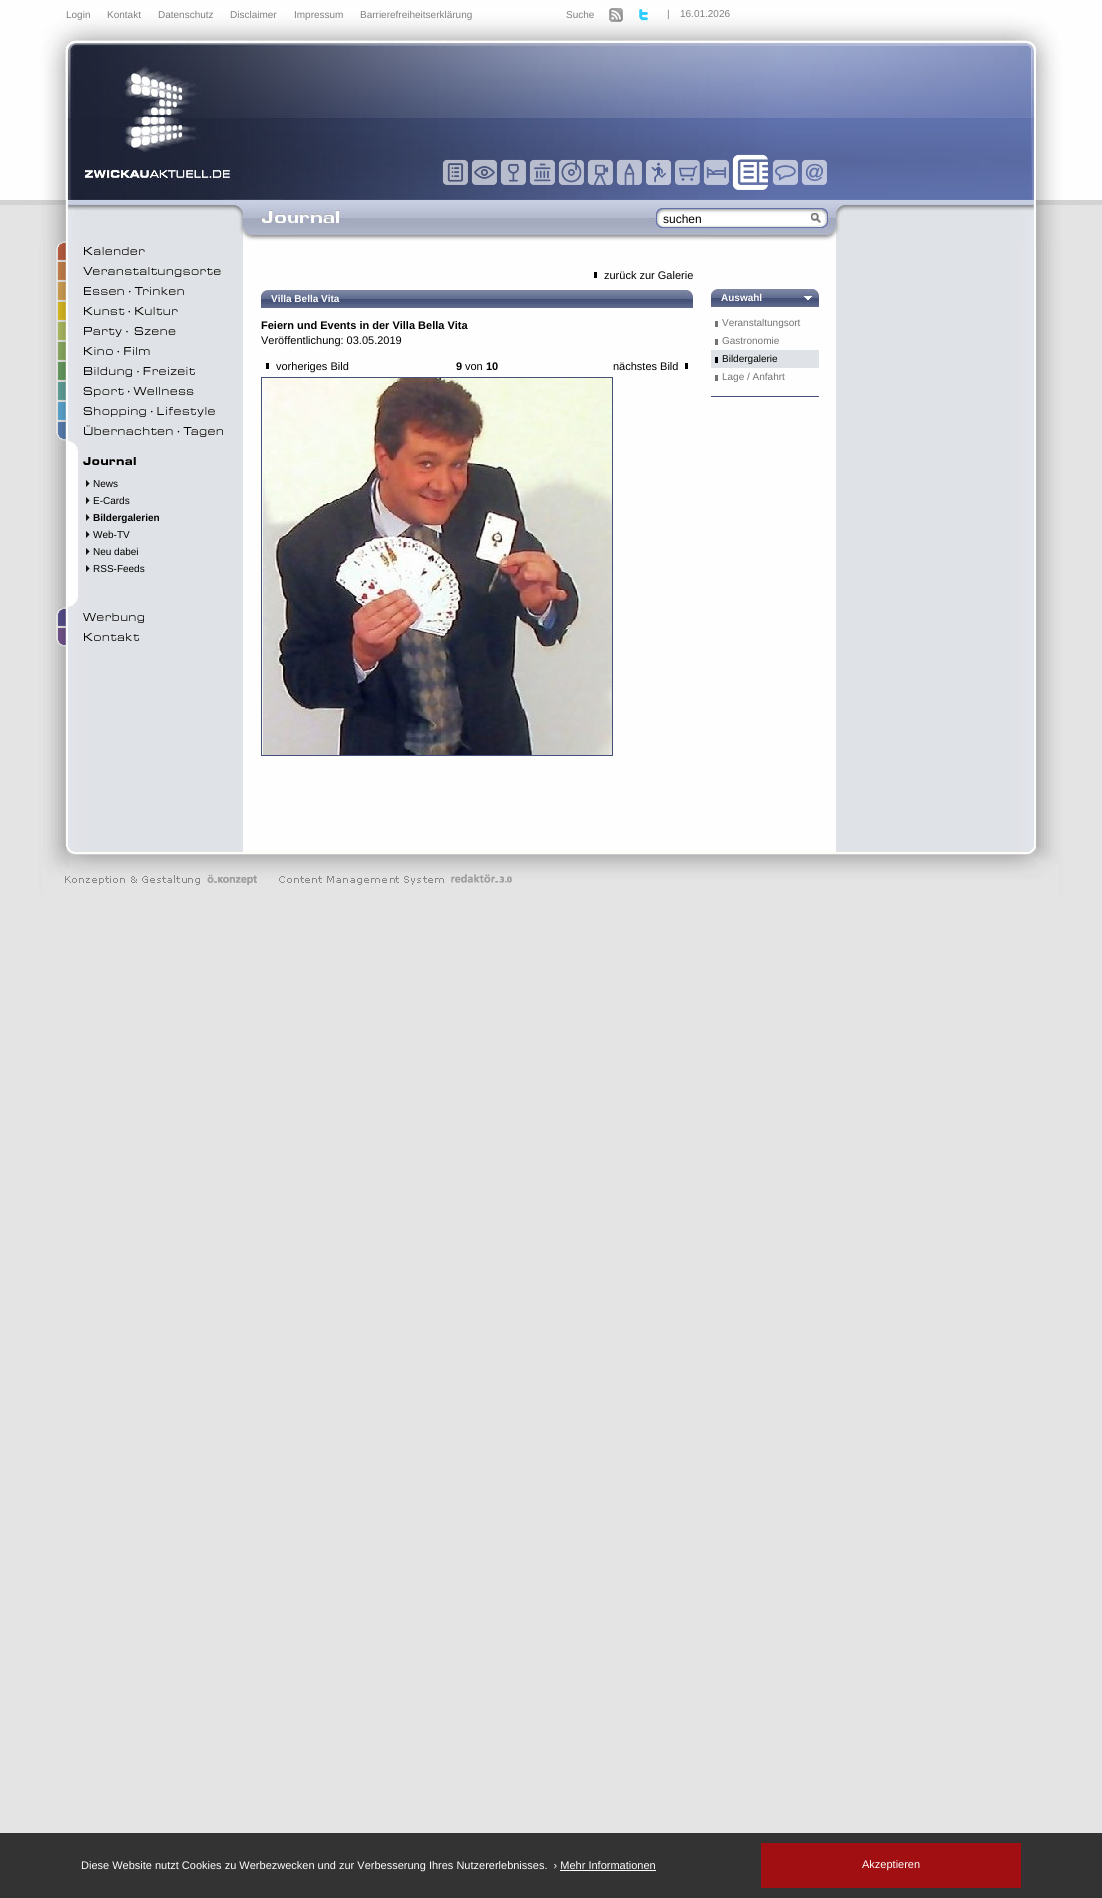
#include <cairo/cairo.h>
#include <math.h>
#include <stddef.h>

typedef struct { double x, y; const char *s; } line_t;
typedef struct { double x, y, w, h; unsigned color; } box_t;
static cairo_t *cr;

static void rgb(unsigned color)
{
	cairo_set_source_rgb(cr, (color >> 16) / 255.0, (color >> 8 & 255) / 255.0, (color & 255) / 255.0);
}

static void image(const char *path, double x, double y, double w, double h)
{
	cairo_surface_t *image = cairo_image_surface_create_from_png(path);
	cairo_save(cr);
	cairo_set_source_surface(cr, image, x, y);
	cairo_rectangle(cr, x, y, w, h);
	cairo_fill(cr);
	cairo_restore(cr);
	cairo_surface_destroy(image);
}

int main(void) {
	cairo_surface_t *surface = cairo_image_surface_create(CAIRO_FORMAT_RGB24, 1102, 1898);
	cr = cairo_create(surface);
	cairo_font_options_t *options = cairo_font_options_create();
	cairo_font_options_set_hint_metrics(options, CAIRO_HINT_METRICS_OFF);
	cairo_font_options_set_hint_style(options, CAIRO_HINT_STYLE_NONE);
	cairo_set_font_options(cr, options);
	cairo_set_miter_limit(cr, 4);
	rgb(0xe3e4e3);
	cairo_paint(cr);
	image("img/1.png", 0, 0, 1102, 205);
	image("img/2.png", 26, 241, 1050, 654);
	image("img/3.png", 26, 0, 1050, 241);
	image("img/4.png", 609, 8, 14, 14);
	image("img/5.png", 639, 9, 9, 12);
	rgb(0x000000);
	cairo_rectangle(cr, 594, 272, 3, 6);
	cairo_fill(cr);
	image("img/6.png", 261, 290, 432, 18);
	cairo_rectangle(cr, 266, 363, 3, 6);
	cairo_fill(cr);
	cairo_rectangle(cr, 685, 363, 3, 6);
	cairo_fill(cr);
	cairo_rectangle(cr, 261.5, 377.5, 351, 378);
	rgb(0x435079);
	cairo_set_line_width(cr, 1);
	cairo_stroke(cr);
	image("img/7.png", 262, 378, 350, 377);
	image("img/8.png", 711, 289, 108, 18);
	{
		static const box_t items[] = {
			{715, 321, 3, 6, 0x737373},
			{715, 339, 3, 6, 0x737373},
			{711, 350, 108, 18, 0xdfe2e6},
			{715, 357, 3, 6, 0x000000},
			{715, 375, 3, 6, 0x737373},
			{711, 396, 108, 1, 0x435079},
		};
		for (size_t i = 0; i < sizeof items / sizeof *items; i++) {
			rgb(items[i].color);
			cairo_rectangle(cr, items[i].x, items[i].y, items[i].w, items[i].h);
			cairo_fill(cr);
		}
	}
	image("img/9.png", 56, 241, 10, 20);
	image("img/10.png", 84, 247, 61, 8);
	image("img/11.png", 56, 261, 10, 20);
	image("img/12.png", 83, 267, 138, 10);
	image("img/13.png", 56, 281, 10, 20);
	image("img/14.png", 84, 287, 100, 8);
	image("img/15.png", 56, 301, 10, 20);
	image("img/16.png", 84, 307, 94, 8);
	image("img/17.png", 56, 321, 10, 20);
	image("img/18.png", 84, 327, 92, 10);
	image("img/19.png", 56, 341, 10, 20);
	image("img/20.png", 84, 347, 66, 8);
	image("img/21.png", 56, 361, 10, 20);
	image("img/22.png", 84, 367, 111, 10);
	image("img/23.png", 56, 381, 10, 20);
	image("img/24.png", 83, 387, 111, 10);
	image("img/25.png", 56, 401, 10, 20);
	image("img/26.png", 83, 407, 132, 10);
	image("img/27.png", 56, 421, 10, 20);
	image("img/28.png", 84, 425, 139, 12);
	image("img/29.png", 68, 441, 10, 10);
	rgb(0xffffff);
	cairo_rectangle(cr, 68, 451, 10, 20);
	cairo_fill(cr);
	image("img/30.png", 83, 457, 53, 8);
	rgb(0xfefffe);
	cairo_rectangle(cr, 68, 471, 10, 126);
	cairo_fill(cr);
	image("img/31.png", 86, 480, 4, 7);
	image("img/31.png", 86, 497, 4, 7);
	image("img/31.png", 86, 514, 4, 7);
	image("img/31.png", 86, 531, 4, 7);
	image("img/31.png", 86, 548, 4, 7);
	image("img/31.png", 86, 565, 4, 7);
	image("img/32.png", 68, 597, 10, 10);
	image("img/33.png", 56, 607, 10, 20);
	image("img/34.png", 83, 613, 61, 10);
	image("img/35.png", 56, 627, 10, 20);
	image("img/36.png", 84, 633, 55, 8);
	image("img/37.png", 43, 847, 1016, 48);
	image("img/38.png", 442, 159, 26, 26);
	image("img/39.png", 471, 159, 26, 26);
	image("img/40.png", 500, 159, 26, 26);
	image("img/41.png", 529, 159, 26, 26);
	image("img/42.png", 558, 159, 26, 26);
	image("img/43.png", 587, 159, 26, 26);
	image("img/44.png", 616, 159, 26, 26);
	image("img/45.png", 646, 160, 25, 25);
	image("img/46.png", 675, 160, 25, 25);
	image("img/47.png", 703, 159, 26, 26);
	image("img/48.png", 732, 154, 36, 36);
	image("img/49.png", 772, 159, 26, 26);
	image("img/50.png", 801, 159, 26, 26);
	{
		static const box_t items[] = {
			{0, 1833, 1102, 65, 0x333333},
			{560, 1870, 96, 1, 0xffffff},
			{761, 1843, 260, 45, 0xa20f12},
		};
		for (size_t i = 0; i < sizeof items / sizeof *items; i++) {
			rgb(items[i].color);
			cairo_rectangle(cr, items[i].x, items[i].y, items[i].w, items[i].h);
			cairo_fill(cr);
		}
	}
	cairo_select_font_face(cr, "Liberation Sans", CAIRO_FONT_SLANT_NORMAL, CAIRO_FONT_WEIGHT_NORMAL);
	cairo_set_font_size(cr, 10);
	rgb(0x7e7f7e);
	{
		static const line_t items[] = {
			{66, 18, "Login"},
			{107, 18, "Kontakt"},
			{158, 18, "Datenschutz"},
			{230, 18, "Disclaimer"},
			{294, 18, "Impressum"},
			{360, 18, "Barrierefreiheitserklärung"},
			{566, 18, "Suche"},
			{667, 17, "|"},
			{680, 17, "16.01.2026"},
		};
		for (size_t i = 0; i < sizeof items / sizeof *items; i++) {
			cairo_move_to(cr, items[i].x, items[i].y);
			cairo_show_text(cr, items[i].s);
		}
	}
	cairo_set_font_size(cr, 12);
	rgb(0x000000);
	cairo_move_to(cr, 663, 223);
	cairo_show_text(cr, "suchen");
	cairo_set_font_size(cr, 11);
	cairo_move_to(cr, 604, 279);
	cairo_show_text(cr, "zurück zur Galerie");
	cairo_select_font_face(cr, "Liberation Sans", CAIRO_FONT_SLANT_NORMAL, CAIRO_FONT_WEIGHT_BOLD);
	cairo_set_font_size(cr, 10);
	rgb(0xffffff);
	cairo_move_to(cr, 271, 302);
	cairo_show_text(cr, "Villa Bella Vita");
	cairo_set_font_size(cr, 11);
	rgb(0x000000);
	cairo_move_to(cr, 261, 329);
	cairo_show_text(cr, "Feiern und Events in der Villa Bella Vita");
	cairo_select_font_face(cr, "Liberation Sans", CAIRO_FONT_SLANT_NORMAL, CAIRO_FONT_WEIGHT_NORMAL);
	cairo_move_to(cr, 261, 344);
	cairo_show_text(cr, "Veröffentlichung: 03.05.2019");
	cairo_move_to(cr, 276, 370);
	cairo_show_text(cr, "vorheriges Bild");
	cairo_select_font_face(cr, "Liberation Sans", CAIRO_FONT_SLANT_NORMAL, CAIRO_FONT_WEIGHT_BOLD);
	cairo_move_to(cr, 456, 370);
	cairo_show_text(cr, "9");
	cairo_select_font_face(cr, "Liberation Sans", CAIRO_FONT_SLANT_NORMAL, CAIRO_FONT_WEIGHT_NORMAL);
	cairo_move_to(cr, 465, 370);
	cairo_show_text(cr, "von");
	cairo_select_font_face(cr, "Liberation Sans", CAIRO_FONT_SLANT_NORMAL, CAIRO_FONT_WEIGHT_BOLD);
	cairo_move_to(cr, 486, 370);
	cairo_show_text(cr, "10");
	cairo_select_font_face(cr, "Liberation Sans", CAIRO_FONT_SLANT_NORMAL, CAIRO_FONT_WEIGHT_NORMAL);
	cairo_move_to(cr, 613, 370);
	cairo_show_text(cr, "nächstes Bild");
	cairo_select_font_face(cr, "Liberation Sans", CAIRO_FONT_SLANT_NORMAL, CAIRO_FONT_WEIGHT_BOLD);
	cairo_set_font_size(cr, 10);
	rgb(0xffffff);
	cairo_move_to(cr, 721, 301);
	cairo_show_text(cr, "Auswahl");
	cairo_select_font_face(cr, "Liberation Sans", CAIRO_FONT_SLANT_NORMAL, CAIRO_FONT_WEIGHT_NORMAL);
	rgb(0x737373);
	cairo_move_to(cr, 722, 326);
	cairo_show_text(cr, "Veranstaltungsort");
	cairo_move_to(cr, 722, 344);
	cairo_show_text(cr, "Gastronomie");
	rgb(0x000000);
	cairo_move_to(cr, 722, 362);
	cairo_show_text(cr, "Bildergalerie");
	rgb(0x737373);
	cairo_move_to(cr, 722, 380);
	cairo_show_text(cr, "Lage / Anfahrt");
	rgb(0x000000);
	cairo_move_to(cr, 93, 487);
	cairo_show_text(cr, "News");
	cairo_move_to(cr, 93, 504);
	cairo_show_text(cr, "E-Cards");
	cairo_select_font_face(cr, "Liberation Sans", CAIRO_FONT_SLANT_NORMAL, CAIRO_FONT_WEIGHT_BOLD);
	cairo_move_to(cr, 93, 521);
	cairo_show_text(cr, "Bildergalerien");
	cairo_select_font_face(cr, "Liberation Sans", CAIRO_FONT_SLANT_NORMAL, CAIRO_FONT_WEIGHT_NORMAL);
	{
		static const line_t items[] = {
			{93, 538, "Web-TV"},
			{93, 555, "Neu dabei"},
			{93, 572, "RSS-Feeds"},
		};
		for (size_t i = 0; i < sizeof items / sizeof *items; i++) {
			cairo_move_to(cr, items[i].x, items[i].y);
			cairo_show_text(cr, items[i].s);
		}
	}
	cairo_set_font_size(cr, 11);
	rgb(0xffffff);
	cairo_move_to(cr, 81, 1869);
	cairo_show_text(cr, "Diese Website nutzt Cookies zu Werbezwecken und zur Verbesserung Ihres Nutzererlebnisses.  › Mehr Informationen");
	cairo_move_to(cr, 862, 1868);
	cairo_show_text(cr, "Akzeptieren");
	cairo_surface_write_to_png(surface, "page.png");
	cairo_font_options_destroy(options);
	cairo_destroy(cr);
	cairo_surface_destroy(surface);
	return 0;
}
